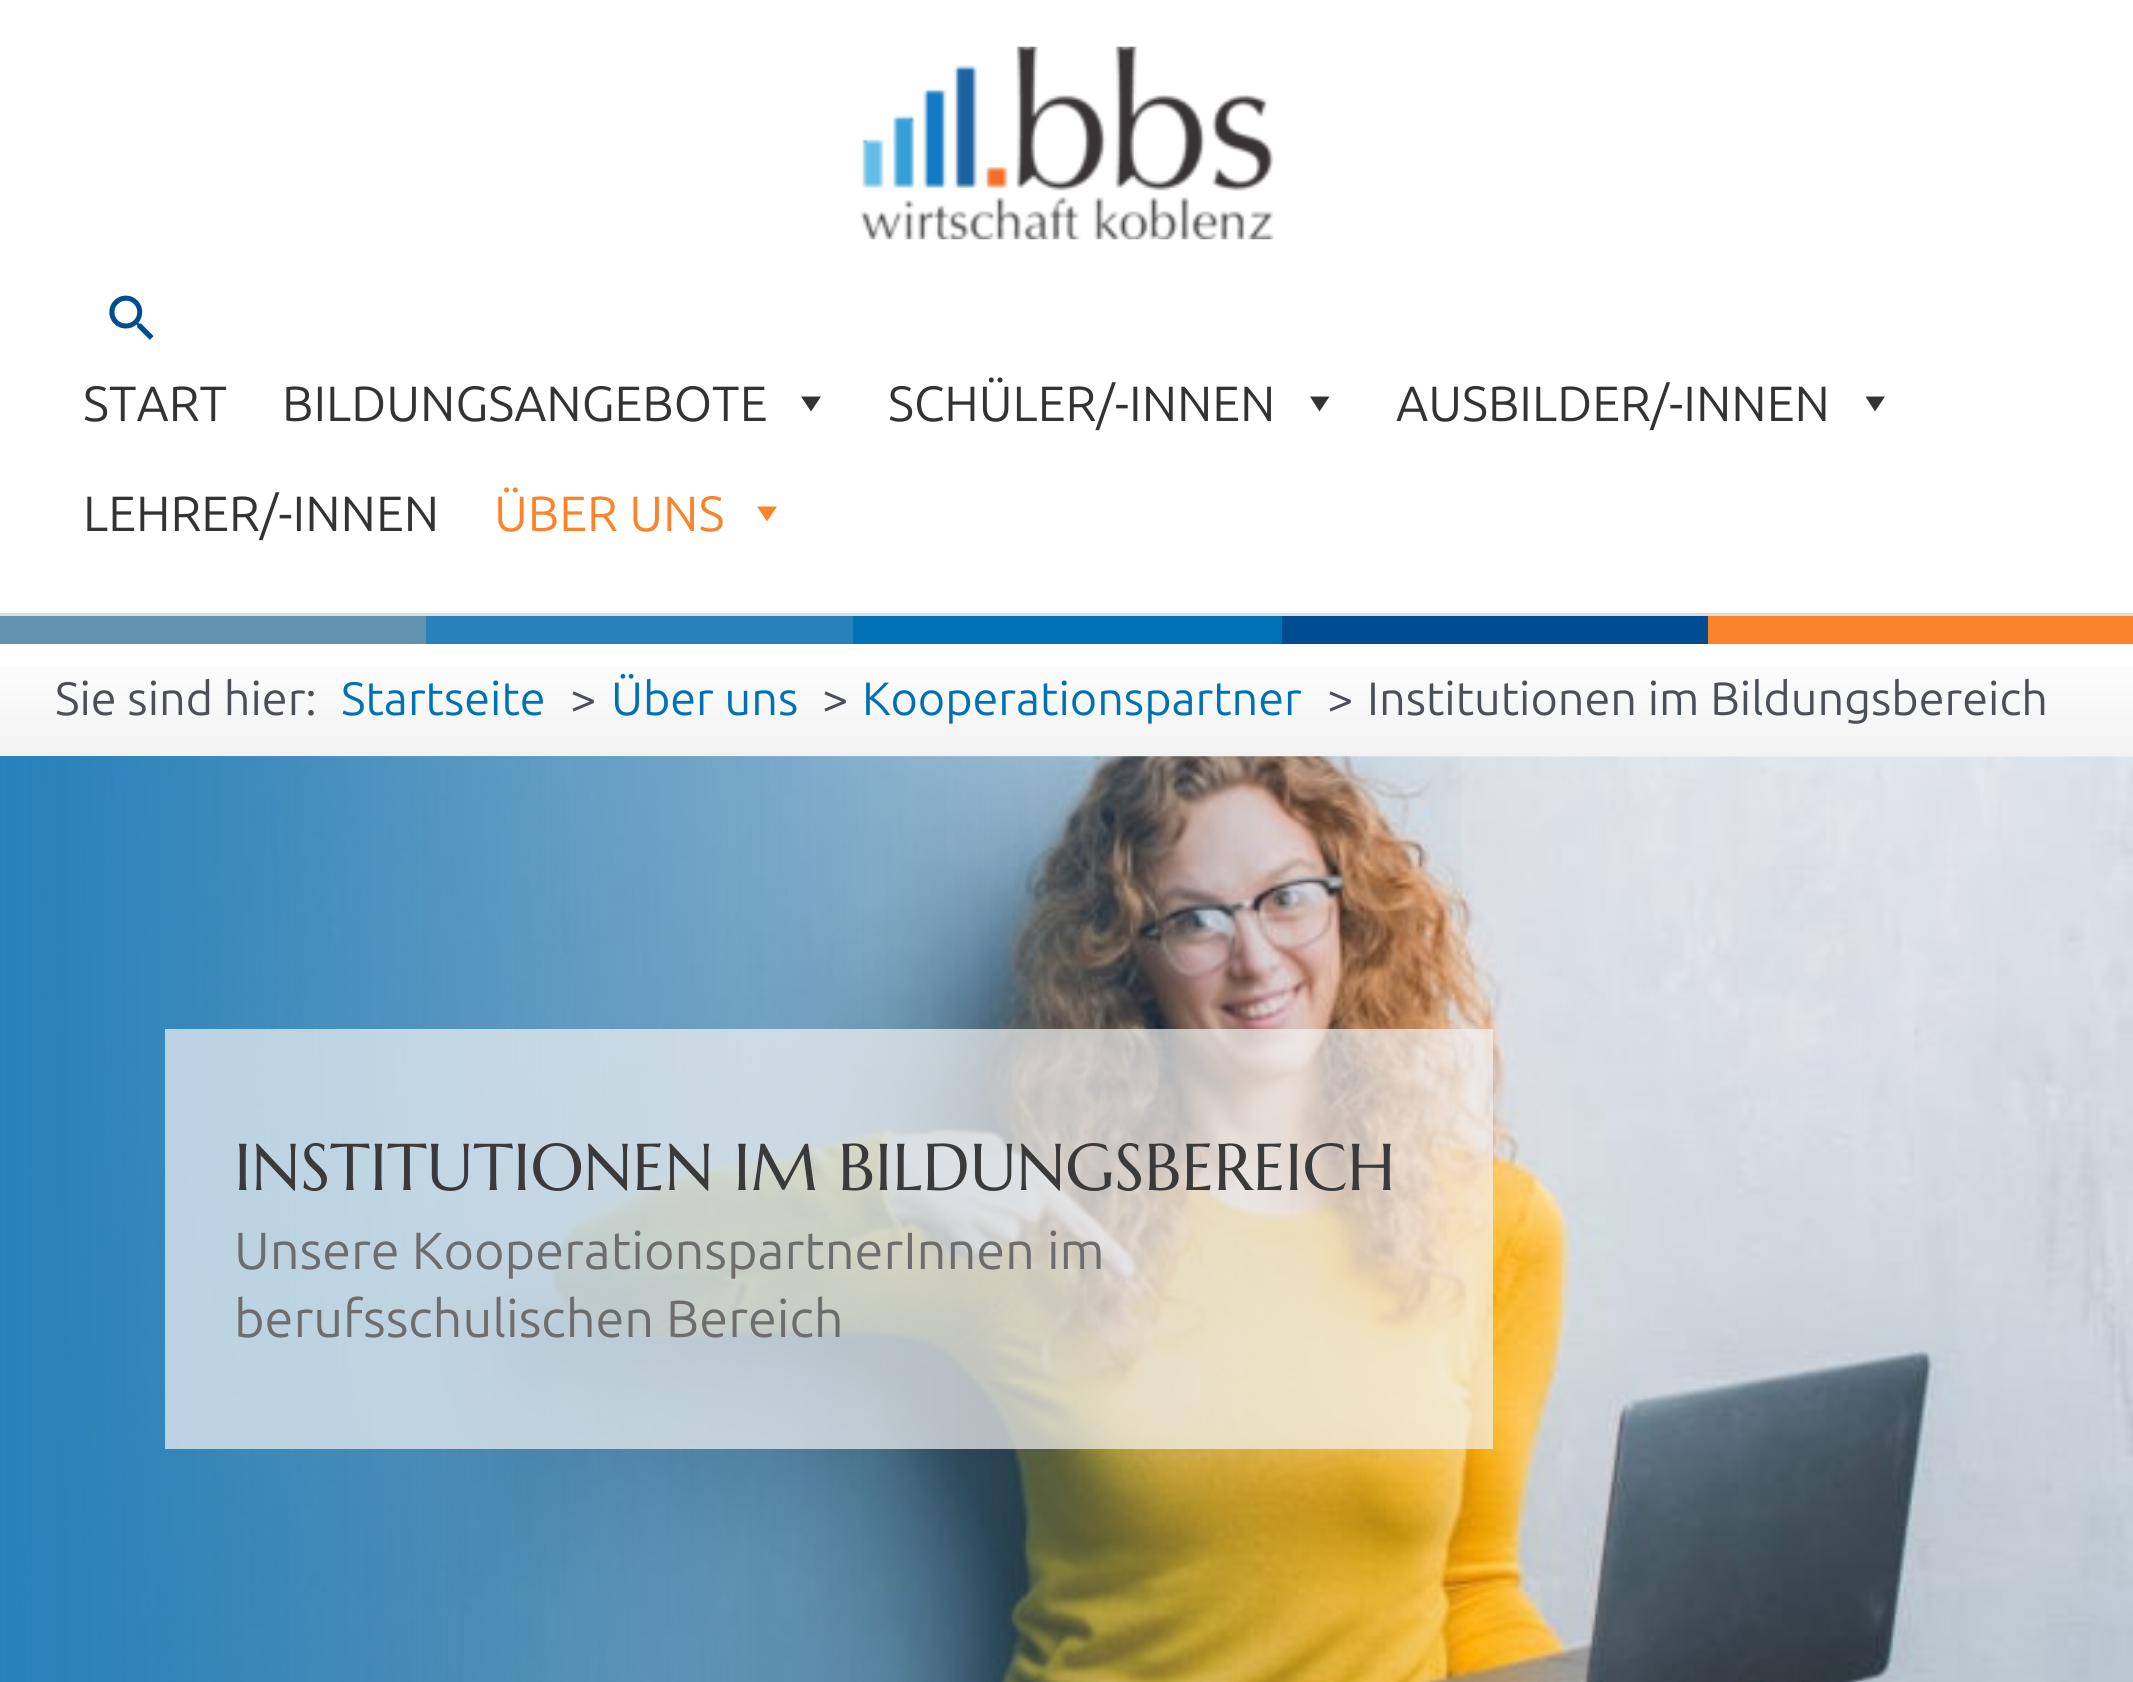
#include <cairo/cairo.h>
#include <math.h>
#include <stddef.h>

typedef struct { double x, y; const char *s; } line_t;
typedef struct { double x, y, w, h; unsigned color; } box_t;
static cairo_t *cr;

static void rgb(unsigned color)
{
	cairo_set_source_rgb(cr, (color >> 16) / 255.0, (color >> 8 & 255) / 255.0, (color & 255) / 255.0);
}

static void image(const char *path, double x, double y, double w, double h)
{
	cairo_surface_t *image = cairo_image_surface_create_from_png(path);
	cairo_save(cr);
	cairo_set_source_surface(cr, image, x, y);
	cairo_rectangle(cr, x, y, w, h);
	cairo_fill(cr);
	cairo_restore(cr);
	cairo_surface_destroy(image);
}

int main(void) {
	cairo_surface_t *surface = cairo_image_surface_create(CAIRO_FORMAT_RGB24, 2133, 1682);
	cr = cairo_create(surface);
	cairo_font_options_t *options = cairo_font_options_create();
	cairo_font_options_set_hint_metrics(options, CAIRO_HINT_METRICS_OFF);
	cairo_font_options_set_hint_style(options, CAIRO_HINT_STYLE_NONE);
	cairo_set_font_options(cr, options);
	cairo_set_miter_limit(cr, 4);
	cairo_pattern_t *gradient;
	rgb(0xffffff);
	cairo_paint(cr);
	rgb(0xdddddd);
	cairo_rectangle(cr, 0, 613, 2133, 3);
	cairo_fill(cr);
	image("img/1.png", 860, 46, 414, 194);
	image("img/2.png", 109, 295, 45, 45);
	rgb(0x333333);
	cairo_new_path(cr);
	cairo_move_to(cr, 821, 396.5);
	cairo_line_to(cr, 811, 411.5);
	cairo_line_to(cr, 801, 396.5);
	cairo_close_path(cr);
	cairo_fill(cr);
	cairo_new_path(cr);
	cairo_move_to(cr, 1329.5, 396.5);
	cairo_line_to(cr, 1319.5, 411.5);
	cairo_line_to(cr, 1310, 396.5);
	cairo_close_path(cr);
	cairo_fill(cr);
	cairo_new_path(cr);
	cairo_move_to(cr, 1885, 396.5);
	cairo_line_to(cr, 1875, 411.5);
	cairo_line_to(cr, 1865.5, 396.5);
	cairo_close_path(cr);
	cairo_fill(cr);
	rgb(0xfa842b);
	cairo_new_path(cr);
	cairo_move_to(cr, 777, 506.5);
	cairo_line_to(cr, 767, 521.5);
	cairo_line_to(cr, 757, 506.5);
	cairo_close_path(cr);
	cairo_fill(cr);
	{
		static const box_t items[] = {
			{0, 616, 426, 28, 0x6391b0},
			{426, 616, 427, 28, 0x2781bb},
			{853, 616, 429, 28, 0x0071b5},
			{1282, 616, 426, 28, 0x004c91},
			{1708, 616, 425, 28, 0xfa842b},
		};
		for (size_t i = 0; i < sizeof items / sizeof *items; i++) {
			rgb(items[i].color);
			cairo_rectangle(cr, items[i].x, items[i].y, items[i].w, items[i].h);
			cairo_fill(cr);
		}
	}
	gradient = cairo_pattern_create_linear(1067, 756, 1067, 644);
	cairo_pattern_add_color_stop_rgba(gradient, 0, 0.949, 0.949, 0.949, 1);
	cairo_pattern_add_color_stop_rgba(gradient, 1, 1, 1, 1, 1);
	cairo_set_source(cr, gradient);
	cairo_pattern_destroy(gradient);
	cairo_rectangle(cr, 0, 666, 2133, 90);
	cairo_fill(cr);
	image("img/3.png", 9, 756, 2124, 926);
	gradient = cairo_pattern_create_linear(0, 1334, 1493, 1334);
	cairo_pattern_add_color_stop_rgba(gradient, 0, 0.153, 0.506, 0.733, 1);
	cairo_pattern_add_color_stop_rgba(gradient, 1, 0.153, 0.506, 0.733, 0);
	cairo_set_source(cr, gradient);
	cairo_pattern_destroy(gradient);
	cairo_rectangle(cr, 0, 756, 1461, 926);
	cairo_fill(cr);
	cairo_set_source_rgba(cr, 0.949, 0.949, 0.949, 0.7);
	cairo_rectangle(cr, 165, 1029, 1328, 420);
	cairo_fill(cr);
	cairo_select_font_face(cr, "Ubuntu", CAIRO_FONT_SLANT_NORMAL, CAIRO_FONT_WEIGHT_NORMAL);
	cairo_set_font_size(cr, 49.5);
	rgb(0x333333);
	{
		static const line_t items[] = {
			{83, 421, "START"},
			{282, 421, "BILDUNGSANGEBOTE"},
			{888, 421, "SCHÜLER/-INNEN"},
			{1396, 421, "AUSBILDER/-INNEN"},
			{83, 531, "LEHRER/-INNEN"},
		};
		for (size_t i = 0; i < sizeof items / sizeof *items; i++) {
			cairo_move_to(cr, items[i].x, items[i].y);
			cairo_show_text(cr, items[i].s);
		}
	}
	rgb(0xfa842b);
	cairo_move_to(cr, 494, 531);
	cairo_show_text(cr, "ÜBER UNS");
	cairo_set_font_size(cr, 46.75);
	rgb(0x4b4f58);
	cairo_move_to(cr, 55, 715);
	cairo_show_text(cr, "Sie sind hier:");
	rgb(0x0071b5);
	cairo_move_to(cr, 341, 715);
	cairo_show_text(cr, "Startseite");
	rgb(0x4b4f58);
	cairo_move_to(cr, 570, 715);
	cairo_show_text(cr, ">");
	rgb(0x0071b5);
	cairo_move_to(cr, 611, 715);
	cairo_show_text(cr, "Über uns");
	rgb(0x4b4f58);
	cairo_move_to(cr, 822, 715);
	cairo_show_text(cr, ">");
	rgb(0x0071b5);
	cairo_move_to(cr, 862, 715);
	cairo_show_text(cr, "Kooperationspartner");
	rgb(0x4b4f58);
	cairo_move_to(cr, 1327, 715);
	cairo_show_text(cr, ">");
	cairo_move_to(cr, 1367, 715);
	cairo_show_text(cr, "Institutionen im Bildungsbereich");
	cairo_select_font_face(cr, "Marcellus", CAIRO_FONT_SLANT_NORMAL, CAIRO_FONT_WEIGHT_NORMAL);
	cairo_set_font_size(cr, 66);
	rgb(0x3a3a3a);
	cairo_move_to(cr, 234, 1190);
	cairo_show_text(cr, "INSTITUTIONEN IM BILDUNGSBEREICH");
	cairo_select_font_face(cr, "Ubuntu", CAIRO_FONT_SLANT_NORMAL, CAIRO_FONT_WEIGHT_NORMAL);
	cairo_set_font_size(cr, 52.25);
	rgb(0x6d6d6d);
	cairo_move_to(cr, 234, 1269);
	cairo_show_text(cr, "Unsere KooperationspartnerInnen im");
	cairo_move_to(cr, 234, 1337);
	cairo_show_text(cr, "berufsschulischen Bereich");
	cairo_surface_write_to_png(surface, "page.png");
	cairo_font_options_destroy(options);
	cairo_destroy(cr);
	cairo_surface_destroy(surface);
	return 0;
}
